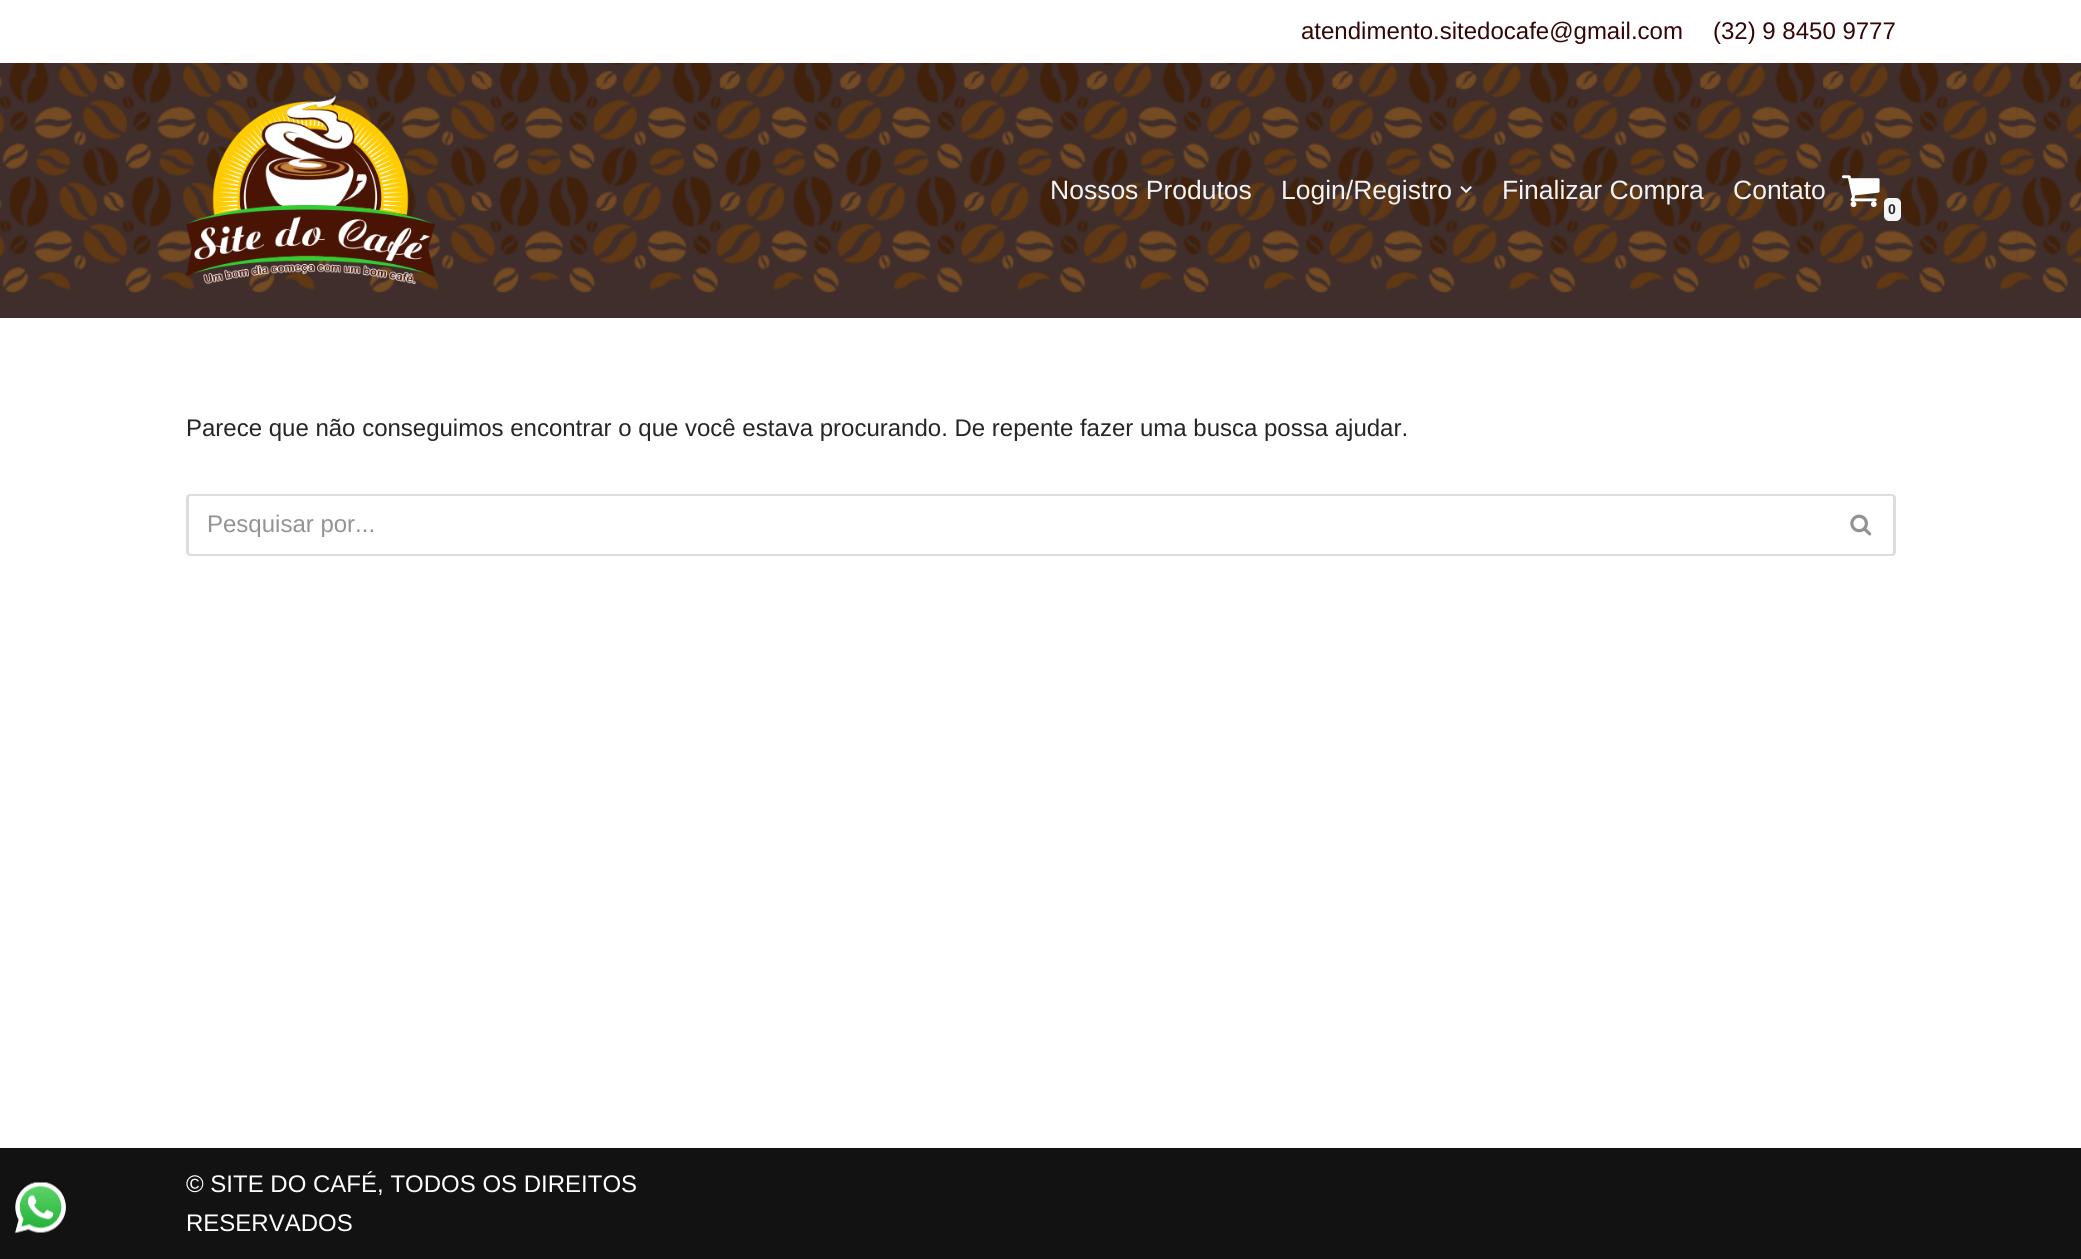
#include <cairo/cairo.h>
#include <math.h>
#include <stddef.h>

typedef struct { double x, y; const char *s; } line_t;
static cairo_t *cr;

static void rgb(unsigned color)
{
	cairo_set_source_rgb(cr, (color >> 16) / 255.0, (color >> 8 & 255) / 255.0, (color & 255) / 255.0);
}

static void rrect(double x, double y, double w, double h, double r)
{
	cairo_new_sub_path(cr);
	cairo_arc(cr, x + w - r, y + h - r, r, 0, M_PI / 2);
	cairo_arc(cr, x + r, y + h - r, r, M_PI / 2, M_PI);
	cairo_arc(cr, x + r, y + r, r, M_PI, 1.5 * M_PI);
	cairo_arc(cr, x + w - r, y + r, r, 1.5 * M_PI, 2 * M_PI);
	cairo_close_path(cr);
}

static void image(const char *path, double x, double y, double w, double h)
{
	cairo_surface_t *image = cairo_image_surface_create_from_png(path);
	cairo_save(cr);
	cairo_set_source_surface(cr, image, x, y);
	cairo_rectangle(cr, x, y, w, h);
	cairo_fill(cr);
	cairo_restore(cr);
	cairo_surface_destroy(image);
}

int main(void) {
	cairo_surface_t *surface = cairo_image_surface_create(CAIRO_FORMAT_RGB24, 2081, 1259);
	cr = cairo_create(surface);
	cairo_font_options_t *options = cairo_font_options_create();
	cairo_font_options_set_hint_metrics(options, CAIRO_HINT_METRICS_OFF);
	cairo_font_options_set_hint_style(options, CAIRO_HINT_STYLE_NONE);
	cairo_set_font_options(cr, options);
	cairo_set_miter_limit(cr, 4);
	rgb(0xffffff);
	cairo_paint(cr);
	rgb(0x121212);
	cairo_rectangle(cr, 0, 1148, 2081, 111);
	cairo_fill(cr);
	image("img/1.png", 15, 1182, 51, 52);
	image("img/2.png", 0, 63, 2081, 255);
	image("img/3.png", 186, 95, 249, 190);
	image("img/4.png", 1460, 186, 12, 7);
	image("img/5.png", 1842, 175, 38, 33);
	rgb(0xf4f5f7);
	rrect(1884, 198, 17, 23, 5);
	cairo_fill(cr);
	rgb(0xdddddd);
	cairo_set_fill_rule(cr, CAIRO_FILL_RULE_EVEN_ODD);
	cairo_new_path(cr);
	cairo_move_to(cr, 190, 494);
	cairo_line_to(cr, 1828, 494);
	cairo_line_to(cr, 1828, 556);
	cairo_line_to(cr, 190, 556);
	cairo_curve_to(cr, 188, 556, 186, 554, 186, 552);
	cairo_line_to(cr, 186, 498);
	cairo_curve_to(cr, 186, 496, 188, 494, 190, 494);
	cairo_close_path(cr);
	cairo_move_to(cr, 190, 496);
	cairo_line_to(cr, 1828, 496);
	cairo_line_to(cr, 1828, 554);
	cairo_line_to(cr, 190, 554);
	cairo_curve_to(cr, 190, 554, 189, 553, 189, 552);
	cairo_line_to(cr, 189, 498);
	cairo_curve_to(cr, 189, 497, 190, 496, 190, 496);
	cairo_close_path(cr);
	cairo_fill(cr);
	cairo_new_path(cr);
	cairo_move_to(cr, 1828, 494);
	cairo_line_to(cr, 1892, 494);
	cairo_curve_to(cr, 1894, 494, 1896, 496, 1896, 498);
	cairo_line_to(cr, 1896, 552);
	cairo_curve_to(cr, 1896, 554, 1894, 556, 1892, 556);
	cairo_line_to(cr, 1828, 556);
	cairo_close_path(cr);
	cairo_move_to(cr, 1828, 496);
	cairo_line_to(cr, 1892, 496);
	cairo_curve_to(cr, 1892, 496, 1893, 497, 1893, 498);
	cairo_line_to(cr, 1893, 552);
	cairo_curve_to(cr, 1893, 553, 1892, 554, 1892, 554);
	cairo_line_to(cr, 1828, 554);
	cairo_close_path(cr);
	cairo_fill(cr);
	image("img/6.png", 1850, 514, 22, 22);
	cairo_select_font_face(cr, "Liberation Sans", CAIRO_FONT_SLANT_NORMAL, CAIRO_FONT_WEIGHT_NORMAL);
	cairo_set_font_size(cr, 24);
	rgb(0x360505);
	cairo_move_to(cr, 1301, 39);
	cairo_show_text(cr, "atendimento.sitedocafe@gmail.com");
	cairo_move_to(cr, 1713, 39);
	cairo_show_text(cr, "(32) 9 8450 9777");
	cairo_set_font_size(cr, 26.5);
	rgb(0xf3f3f3);
	{
		static const line_t items[] = {
			{1050, 199, "Nossos Produtos"},
			{1281, 199, "Login/Registro"},
			{1502, 199, "Finalizar Compra"},
			{1733, 199, "Contato"},
		};
		for (size_t i = 0; i < sizeof items / sizeof *items; i++) {
			cairo_move_to(cr, items[i].x, items[i].y);
			cairo_show_text(cr, items[i].s);
		}
	}
	cairo_select_font_face(cr, "Liberation Sans", CAIRO_FONT_SLANT_NORMAL, CAIRO_FONT_WEIGHT_BOLD);
	cairo_set_font_size(cr, 14);
	rgb(0x272626);
	cairo_move_to(cr, 1888, 214);
	cairo_show_text(cr, "0");
	cairo_select_font_face(cr, "Liberation Sans", CAIRO_FONT_SLANT_NORMAL, CAIRO_FONT_WEIGHT_NORMAL);
	cairo_set_font_size(cr, 24);
	cairo_move_to(cr, 186, 436);
	cairo_show_text(cr, "Parece que não conseguimos encontrar o que você estava procurando. De repente fazer uma busca possa ajudar.");
	rgb(0x939393);
	cairo_move_to(cr, 207, 532);
	cairo_show_text(cr, "Pesquisar por...");
	rgb(0xffffff);
	cairo_move_to(cr, 186, 1192);
	cairo_show_text(cr, "© SITE DO CAFÉ, TODOS OS DIREITOS");
	cairo_move_to(cr, 186, 1231);
	cairo_show_text(cr, "RESERVADOS");
	cairo_surface_write_to_png(surface, "page.png");
	cairo_font_options_destroy(options);
	cairo_destroy(cr);
	cairo_surface_destroy(surface);
	return 0;
}
